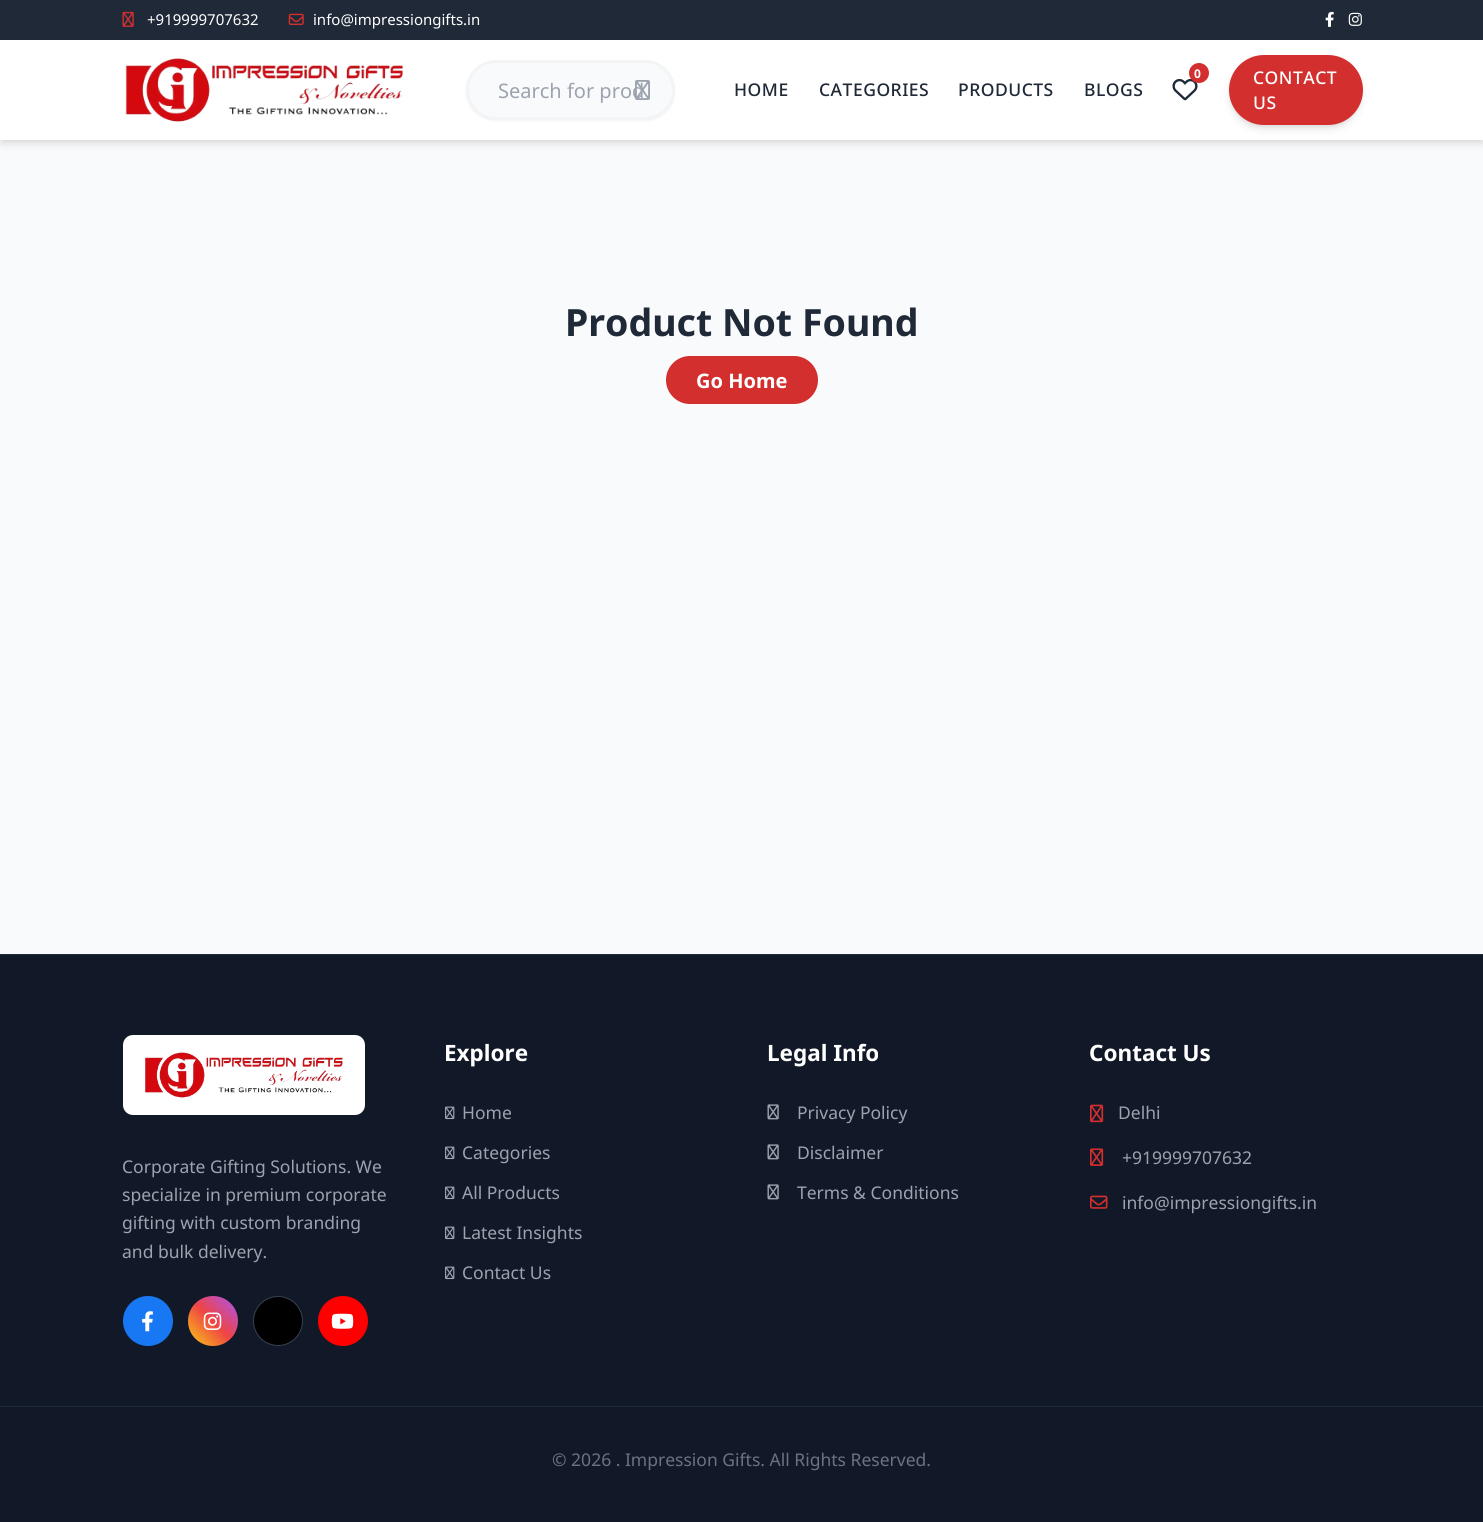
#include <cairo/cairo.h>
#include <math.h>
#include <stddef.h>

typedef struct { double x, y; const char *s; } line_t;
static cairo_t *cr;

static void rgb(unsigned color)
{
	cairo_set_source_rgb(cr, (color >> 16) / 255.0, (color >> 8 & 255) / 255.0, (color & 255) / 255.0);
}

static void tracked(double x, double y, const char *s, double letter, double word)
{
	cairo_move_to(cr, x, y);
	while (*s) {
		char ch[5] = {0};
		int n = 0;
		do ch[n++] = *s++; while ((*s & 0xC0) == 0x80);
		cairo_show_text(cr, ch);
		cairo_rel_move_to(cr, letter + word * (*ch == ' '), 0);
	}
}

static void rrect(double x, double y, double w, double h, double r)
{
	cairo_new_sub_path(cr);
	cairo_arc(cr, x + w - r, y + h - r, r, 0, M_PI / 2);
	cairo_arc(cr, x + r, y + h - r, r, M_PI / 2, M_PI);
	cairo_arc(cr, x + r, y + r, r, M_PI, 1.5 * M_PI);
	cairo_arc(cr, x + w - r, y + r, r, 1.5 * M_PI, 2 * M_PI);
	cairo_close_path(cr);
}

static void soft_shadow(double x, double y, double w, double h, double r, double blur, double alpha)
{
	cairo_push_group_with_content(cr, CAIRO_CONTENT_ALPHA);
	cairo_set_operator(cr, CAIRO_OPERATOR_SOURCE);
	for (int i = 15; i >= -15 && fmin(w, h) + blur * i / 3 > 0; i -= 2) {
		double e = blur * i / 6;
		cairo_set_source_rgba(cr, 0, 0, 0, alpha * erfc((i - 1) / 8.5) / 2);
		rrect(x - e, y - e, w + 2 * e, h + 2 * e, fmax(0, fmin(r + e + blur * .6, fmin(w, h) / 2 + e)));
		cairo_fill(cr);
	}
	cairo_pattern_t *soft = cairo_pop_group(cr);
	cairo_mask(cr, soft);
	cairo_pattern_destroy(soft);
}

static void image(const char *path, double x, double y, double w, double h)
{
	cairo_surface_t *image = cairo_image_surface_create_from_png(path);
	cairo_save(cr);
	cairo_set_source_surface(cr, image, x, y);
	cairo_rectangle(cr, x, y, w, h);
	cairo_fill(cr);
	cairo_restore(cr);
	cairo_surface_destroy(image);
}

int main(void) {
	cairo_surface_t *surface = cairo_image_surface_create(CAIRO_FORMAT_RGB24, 1483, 1522);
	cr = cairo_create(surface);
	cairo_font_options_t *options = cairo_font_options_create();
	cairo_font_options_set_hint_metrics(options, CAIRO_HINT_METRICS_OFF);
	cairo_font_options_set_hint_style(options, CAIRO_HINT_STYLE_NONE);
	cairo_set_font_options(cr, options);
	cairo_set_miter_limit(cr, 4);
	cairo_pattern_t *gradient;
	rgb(0xf9fafb);
	cairo_paint(cr);
	rgb(0x1f2937);
	cairo_rectangle(cr, 0, 0, 1483, 40);
	cairo_fill(cr);
	image("img/1.png", 122, 11, 12, 16);
	image("img/2.png", 288, 13, 16, 12);
	image("img/3.png", 1325, 11, 9, 16);
	image("img/4.png", 1348, 12, 14, 14);
	rgb(0x000000);
	soft_shadow(3, 45, 1478, 95, 0, 2.5, 0.1);
	soft_shadow(1, 46, 1482, 98, 0, 4, 0.1);
	rgb(0xffffff);
	cairo_rectangle(cr, 0, 40, 1483, 100);
	cairo_fill(cr);
	image("img/5.png", 125, 58, 278, 64);
	rgb(0x000000);
	soft_shadow(466, 61, 209, 60, 30, 1, 0.05);
	rgb(0xf9fafb);
	rrect(467.5, 61.5, 206, 57, 28.5);
	cairo_fill_preserve(cr);
	rgb(0xf3f4f6);
	cairo_set_line_width(cr, 3);
	cairo_stroke(cr);
	image("img/7.png", 1172, 79, 26, 22);
	rgb(0xd32f2f);
	cairo_arc(cr, 1199, 73, 10, 0, 2 * M_PI);
	cairo_fill(cr);
	rgb(0x000000);
	soft_shadow(1231, 60, 129, 65, 32.5, 2.5, 0.1);
	soft_shadow(1230, 61, 131, 68, 34, 4, 0.1);
	rgb(0xd32f2f);
	rrect(1229, 55, 134, 70, 35);
	cairo_fill(cr);
	rrect(666, 356, 152, 48, 24);
	cairo_fill(cr);
	rgb(0x111827);
	cairo_rectangle(cr, 0, 955, 1483, 567);
	cairo_fill(cr);
	rgb(0x1f2937);
	cairo_rectangle(cr, 0, 954, 1483, 1);
	cairo_fill(cr);
	rgb(0xffffff);
	rrect(123, 1035, 242, 80, 10);
	cairo_fill(cr);
	image("img/8.png", 145, 1052, 198, 46);
	rgb(0x1877f2);
	cairo_arc(cr, 148, 1321, 25, 0, 2 * M_PI);
	cairo_fill(cr);
	image("img/9.png", 142, 1311, 11, 21);
	gradient = cairo_pattern_create_linear(188, 1346, 238, 1296);
	cairo_pattern_add_color_stop_rgba(gradient, 0, 0.98, 0.8, 0.082, 1);
	cairo_pattern_add_color_stop_rgba(gradient, 0.5, 0.937, 0.267, 0.267, 1);
	cairo_pattern_add_color_stop_rgba(gradient, 1, 0.659, 0.333, 0.969, 1);
	cairo_set_source(cr, gradient);
	cairo_pattern_destroy(gradient);
	cairo_arc(cr, 213, 1321, 25, 0, 2 * M_PI);
	cairo_fill(cr);
	image("img/10.png", 203, 1312, 19, 18);
	rgb(0x000000);
	cairo_arc(cr, 278, 1321, 24.5, 0, 2 * M_PI);
	cairo_fill_preserve(cr);
	rgb(0x374151);
	cairo_set_line_width(cr, 1);
	cairo_stroke(cr);
	rgb(0xff0000);
	cairo_arc(cr, 343, 1321, 25, 0, 2 * M_PI);
	cairo_fill(cr);
	image("img/11.png", 331, 1313, 23, 16);
	image("img/12.png", 445, 1106, 10, 14);
	image("img/12.png", 445, 1146, 10, 14);
	image("img/12.png", 445, 1186, 10, 14);
	image("img/12.png", 445, 1226, 10, 14);
	image("img/12.png", 445, 1266, 10, 14);
	image("img/13.png", 767, 1104, 12, 16);
	image("img/13.png", 767, 1144, 12, 16);
	image("img/13.png", 767, 1184, 12, 16);
	image("img/14.png", 1090, 1104, 14, 19);
	image("img/15.png", 1090, 1148, 14, 18);
	image("img/16.png", 1090, 1195, 18, 14);
	rgb(0x1f2937);
	cairo_rectangle(cr, 0, 1406, 1483, 1);
	cairo_fill(cr);
	cairo_select_font_face(cr, "Noto Sans", CAIRO_FONT_SLANT_NORMAL, CAIRO_FONT_WEIGHT_NORMAL);
	cairo_set_font_size(cr, 15);
	rgb(0xffffff);
	cairo_move_to(cr, 147, 25);
	cairo_show_text(cr, "+919999707632");
	cairo_move_to(cr, 313, 25);
	cairo_show_text(cr, "info@impressiongifts.in");
	cairo_save(cr);
	cairo_rectangle(cr, 499, 76, 144, 28);
	cairo_clip(cr);
	cairo_set_font_size(cr, 20);
	rgb(0x9ca3af);
	cairo_move_to(cr, 498, 98);
	cairo_show_text(cr, "Search for prod");
	cairo_restore(cr);
	image("img/6.png", 635, 80, 15, 20);
	cairo_select_font_face(cr, "Noto Sans Medium", CAIRO_FONT_SLANT_NORMAL, CAIRO_FONT_WEIGHT_NORMAL);
	cairo_set_font_size(cr, 17.5);
	rgb(0x1f2937);
	{
		static const line_t items[] = {
			{734, 96, "HOME"},
			{819, 96, "CATEGORIES"},
			{958, 96, "PRODUCTS"},
			{1084, 96, "BLOGS"},
		};
		for (size_t i = 0; i < sizeof items / sizeof *items; i++) {
			tracked(items[i].x, items[i].y, items[i].s, 0.5, 0);
		}
	}
	cairo_select_font_face(cr, "Noto Sans", CAIRO_FONT_SLANT_NORMAL, CAIRO_FONT_WEIGHT_BOLD);
	cairo_set_font_size(cr, 12);
	rgb(0xffffff);
	tracked(1194, 78, "0", 0.5, 0);
	cairo_select_font_face(cr, "Noto Sans Medium", CAIRO_FONT_SLANT_NORMAL, CAIRO_FONT_WEIGHT_NORMAL);
	cairo_set_font_size(cr, 17.5);
	tracked(1253, 84, "CONTACT", 0.5, 0);
	tracked(1253, 109, "US", 0.5, 0);
	cairo_select_font_face(cr, "Noto Sans", CAIRO_FONT_SLANT_NORMAL, CAIRO_FONT_WEIGHT_BOLD);
	cairo_set_font_size(cr, 37.5);
	rgb(0x1f2937);
	cairo_move_to(cr, 565, 336);
	cairo_show_text(cr, "Product Not Found");
	cairo_set_font_size(cr, 20);
	rgb(0xffffff);
	cairo_move_to(cr, 696, 388);
	cairo_show_text(cr, "Go Home");
	cairo_select_font_face(cr, "Noto Sans", CAIRO_FONT_SLANT_NORMAL, CAIRO_FONT_WEIGHT_NORMAL);
	cairo_set_font_size(cr, 17.5);
	rgb(0x9ca3af);
	{
		static const line_t items[] = {
			{122, 1173, "Corporate Gifting Solutions. We"},
			{122, 1201, "specialize in premium corporate"},
			{122, 1229, "gifting with custom branding"},
			{122, 1258, "and bulk delivery."},
		};
		for (size_t i = 0; i < sizeof items / sizeof *items; i++) {
			cairo_move_to(cr, items[i].x, items[i].y);
			cairo_show_text(cr, items[i].s);
		}
	}
	cairo_select_font_face(cr, "Noto Sans", CAIRO_FONT_SLANT_NORMAL, CAIRO_FONT_WEIGHT_BOLD);
	cairo_set_font_size(cr, 22.5);
	rgb(0xffffff);
	cairo_move_to(cr, 444, 1061);
	cairo_show_text(cr, "Explore");
	cairo_select_font_face(cr, "Noto Sans", CAIRO_FONT_SLANT_NORMAL, CAIRO_FONT_WEIGHT_NORMAL);
	cairo_set_font_size(cr, 17.5);
	rgb(0x9ca3af);
	{
		static const line_t items[] = {
			{462, 1119, "Home"},
			{462, 1159, "Categories"},
			{462, 1199, "All Products"},
			{462, 1239, "Latest Insights"},
			{462, 1279, "Contact Us"},
		};
		for (size_t i = 0; i < sizeof items / sizeof *items; i++) {
			cairo_move_to(cr, items[i].x, items[i].y);
			cairo_show_text(cr, items[i].s);
		}
	}
	cairo_select_font_face(cr, "Noto Sans", CAIRO_FONT_SLANT_NORMAL, CAIRO_FONT_WEIGHT_BOLD);
	cairo_set_font_size(cr, 22.5);
	rgb(0xffffff);
	cairo_move_to(cr, 767, 1061);
	cairo_show_text(cr, "Legal Info");
	cairo_select_font_face(cr, "Noto Sans", CAIRO_FONT_SLANT_NORMAL, CAIRO_FONT_WEIGHT_NORMAL);
	cairo_set_font_size(cr, 17.5);
	rgb(0x9ca3af);
	{
		static const line_t items[] = {
			{797, 1119, "Privacy Policy"},
			{797, 1159, "Disclaimer"},
			{797, 1199, "Terms & Conditions"},
		};
		for (size_t i = 0; i < sizeof items / sizeof *items; i++) {
			cairo_move_to(cr, items[i].x, items[i].y);
			cairo_show_text(cr, items[i].s);
		}
	}
	cairo_select_font_face(cr, "Noto Sans", CAIRO_FONT_SLANT_NORMAL, CAIRO_FONT_WEIGHT_BOLD);
	cairo_set_font_size(cr, 22.5);
	rgb(0xffffff);
	cairo_move_to(cr, 1089, 1061);
	cairo_show_text(cr, "Contact Us");
	cairo_select_font_face(cr, "Noto Sans", CAIRO_FONT_SLANT_NORMAL, CAIRO_FONT_WEIGHT_NORMAL);
	cairo_set_font_size(cr, 17.5);
	rgb(0x9ca3af);
	{
		static const line_t items[] = {
			{1118, 1119, "Delhi"},
			{1122, 1164, "+919999707632"},
			{1122, 1209, "info@impressiongifts.in"},
		};
		for (size_t i = 0; i < sizeof items / sizeof *items; i++) {
			cairo_move_to(cr, items[i].x, items[i].y);
			cairo_show_text(cr, items[i].s);
		}
	}
	rgb(0x6b7280);
	cairo_move_to(cr, 552, 1466);
	cairo_show_text(cr, "© 2026 . Impression Gifts. All Rights Reserved.");
	cairo_surface_write_to_png(surface, "page.png");
	cairo_font_options_destroy(options);
	cairo_destroy(cr);
	cairo_surface_destroy(surface);
	return 0;
}
